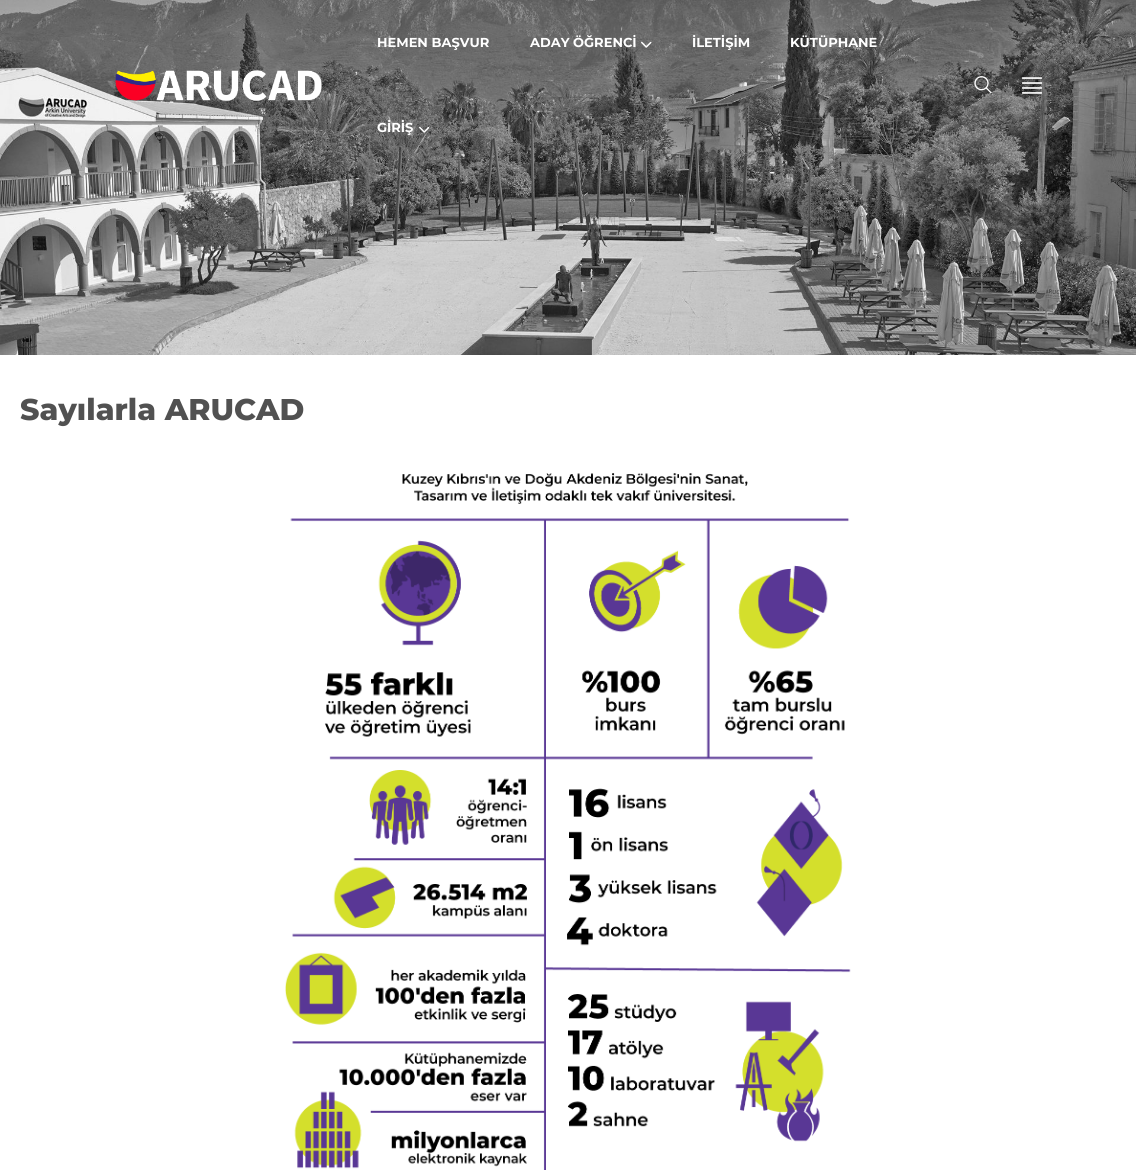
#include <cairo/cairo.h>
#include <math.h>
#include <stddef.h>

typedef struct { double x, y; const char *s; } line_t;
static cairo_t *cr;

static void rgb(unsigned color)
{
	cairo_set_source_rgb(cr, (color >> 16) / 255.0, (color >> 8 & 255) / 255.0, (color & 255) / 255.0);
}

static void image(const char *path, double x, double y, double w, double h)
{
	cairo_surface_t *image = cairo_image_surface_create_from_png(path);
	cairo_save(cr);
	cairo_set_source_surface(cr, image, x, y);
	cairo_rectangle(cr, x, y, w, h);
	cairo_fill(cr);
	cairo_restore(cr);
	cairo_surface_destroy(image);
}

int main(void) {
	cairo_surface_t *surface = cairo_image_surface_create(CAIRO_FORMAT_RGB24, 1136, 1170);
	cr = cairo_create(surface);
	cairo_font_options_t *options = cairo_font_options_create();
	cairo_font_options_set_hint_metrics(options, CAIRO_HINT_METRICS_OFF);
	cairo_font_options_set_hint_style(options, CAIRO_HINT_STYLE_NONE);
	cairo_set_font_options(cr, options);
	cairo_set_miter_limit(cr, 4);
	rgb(0xffffff);
	cairo_paint(cr);
	image("img/6.png", 0, 0, 1136, 355);
	image("img/1.png", 115, 70, 207, 31);
	image("img/2.png", 641, 41, 11, 7);
	image("img/3.png", 419, 126, 10, 7);
	image("img/4.png", 974, 76, 18, 18);
	image("img/5.png", 1022, 77, 20, 17);
	image("img/7.png", 285, 473, 566, 697);
	cairo_select_font_face(cr, "Montserrat", CAIRO_FONT_SLANT_NORMAL, CAIRO_FONT_WEIGHT_BOLD);
	cairo_set_font_size(cr, 13);
	rgb(0xffffff);
	{
		static const line_t items[] = {
			{377, 47, "HEMEN BAŞVUR"},
			{530, 47, "ADAY ÖĞRENCİ"},
			{692, 47, "İLETİŞİM"},
			{790, 47, "KÜTÜPHANE"},
			{377, 132, "GİRİŞ"},
		};
		for (size_t i = 0; i < sizeof items / sizeof *items; i++) {
			cairo_move_to(cr, items[i].x, items[i].y);
			cairo_show_text(cr, items[i].s);
		}
	}
	cairo_select_font_face(cr, "Montserrat ExtraBold", CAIRO_FONT_SLANT_NORMAL, CAIRO_FONT_WEIGHT_NORMAL);
	cairo_set_font_size(cr, 30);
	rgb(0x515151);
	cairo_move_to(cr, 20, 420);
	cairo_show_text(cr, "Sayılarla ARUCAD");
	cairo_surface_write_to_png(surface, "page.png");
	cairo_font_options_destroy(options);
	cairo_destroy(cr);
	cairo_surface_destroy(surface);
	return 0;
}
